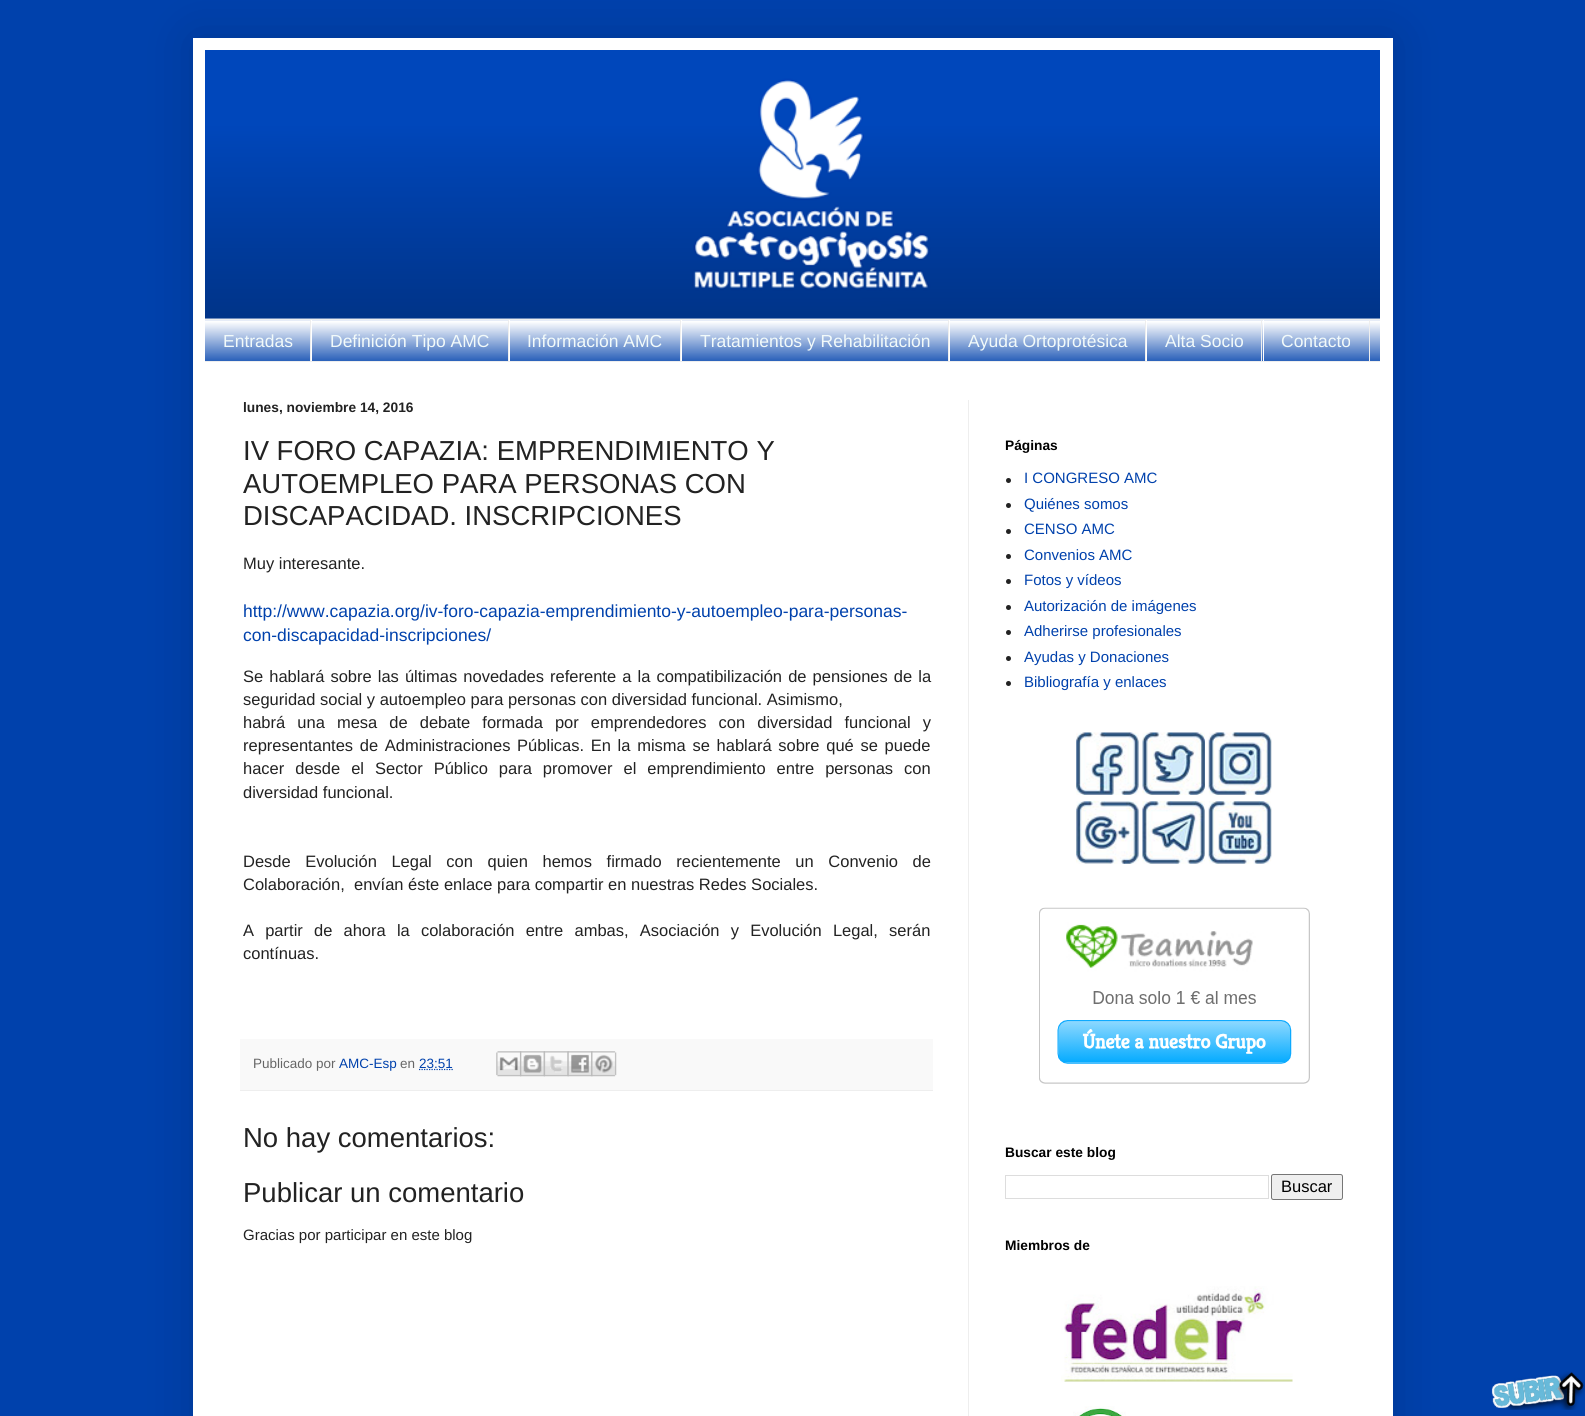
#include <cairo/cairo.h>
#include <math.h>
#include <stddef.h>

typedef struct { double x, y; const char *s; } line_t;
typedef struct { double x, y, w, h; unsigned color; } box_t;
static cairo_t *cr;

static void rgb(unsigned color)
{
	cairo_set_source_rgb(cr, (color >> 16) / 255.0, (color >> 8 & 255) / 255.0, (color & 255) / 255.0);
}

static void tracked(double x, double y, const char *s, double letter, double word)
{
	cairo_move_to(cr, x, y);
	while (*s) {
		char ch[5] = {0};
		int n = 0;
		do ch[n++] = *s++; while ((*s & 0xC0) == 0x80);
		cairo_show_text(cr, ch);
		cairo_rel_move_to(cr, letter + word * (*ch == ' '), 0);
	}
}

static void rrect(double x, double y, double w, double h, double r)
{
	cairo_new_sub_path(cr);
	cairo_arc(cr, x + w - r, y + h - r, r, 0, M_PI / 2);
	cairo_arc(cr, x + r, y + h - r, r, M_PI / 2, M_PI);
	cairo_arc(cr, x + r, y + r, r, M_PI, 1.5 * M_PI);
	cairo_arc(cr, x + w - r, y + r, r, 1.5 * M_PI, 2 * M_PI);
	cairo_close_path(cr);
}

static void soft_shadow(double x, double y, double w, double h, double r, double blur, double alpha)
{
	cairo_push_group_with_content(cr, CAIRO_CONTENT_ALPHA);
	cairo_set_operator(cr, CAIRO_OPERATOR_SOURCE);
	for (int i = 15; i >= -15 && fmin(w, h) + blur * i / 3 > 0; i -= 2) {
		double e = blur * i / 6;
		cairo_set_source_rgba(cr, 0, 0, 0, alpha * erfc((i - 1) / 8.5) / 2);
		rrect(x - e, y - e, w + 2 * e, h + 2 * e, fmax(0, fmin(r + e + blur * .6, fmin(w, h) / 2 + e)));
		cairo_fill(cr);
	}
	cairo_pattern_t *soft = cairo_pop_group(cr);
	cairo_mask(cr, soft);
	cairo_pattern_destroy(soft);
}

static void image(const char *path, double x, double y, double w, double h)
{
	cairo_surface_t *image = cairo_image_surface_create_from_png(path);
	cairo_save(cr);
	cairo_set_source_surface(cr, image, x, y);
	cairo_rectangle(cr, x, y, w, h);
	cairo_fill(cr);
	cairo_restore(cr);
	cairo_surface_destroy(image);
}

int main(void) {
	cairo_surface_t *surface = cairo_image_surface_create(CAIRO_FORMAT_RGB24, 1585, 1416);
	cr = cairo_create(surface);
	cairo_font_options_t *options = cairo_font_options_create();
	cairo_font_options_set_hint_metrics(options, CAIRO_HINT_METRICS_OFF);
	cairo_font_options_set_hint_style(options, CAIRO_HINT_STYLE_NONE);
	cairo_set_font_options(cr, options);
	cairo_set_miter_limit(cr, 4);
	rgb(0x0041ac);
	cairo_paint(cr);
	rgb(0x000000);
	soft_shadow(193, 38, 1200, 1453, 0, 25, 0.15);
	rgb(0xffffff);
	cairo_rectangle(cr, 193, 38, 1200, 1378);
	cairo_fill(cr);
	image("img/1.png", 205, 50, 1175, 269);
	rgb(0x0041ac);
	cairo_rectangle(cr, 205, 320, 1175, 41);
	cairo_fill(cr);
	image("img/2.png", 205, 320, 1175, 41);
	{
		static const box_t items[] = {
			{205, 319, 1175, 1, 0xeeeeee},
			{205, 361, 1175, 1, 0xeeeeee},
			{310, 320, 1, 41, 0xeeeeee},
			{508, 320, 1, 41, 0xeeeeee},
			{311, 320, 1, 41, 0xffffff},
			{680, 320, 1, 41, 0xeeeeee},
			{509, 320, 1, 41, 0xffffff},
			{948, 320, 1, 41, 0xeeeeee},
			{681, 320, 1, 41, 0xffffff},
			{1145, 320, 1, 41, 0xeeeeee},
			{949, 320, 1, 41, 0xffffff},
			{1261, 320, 1, 41, 0xeeeeee},
			{1146, 320, 1, 41, 0xffffff},
			{1369, 320, 1, 41, 0xeeeeee},
			{1263, 320, 1, 41, 0xffffff},
			{968, 400, 1, 1016, 0xeeeeee},
			{240, 1039, 693, 51, 0xf9f9f9},
			{240, 1090, 693, 1, 0xeeeeee},
		};
		for (size_t i = 0; i < sizeof items / sizeof *items; i++) {
			rgb(items[i].color);
			cairo_rectangle(cr, items[i].x, items[i].y, items[i].w, items[i].h);
			cairo_fill(cr);
		}
	}
	cairo_new_path(cr);
	cairo_move_to(cr, 419, 1069.5);
	cairo_line_to(cr, 453, 1069.5);
	rgb(0x0041ac);
	cairo_set_line_width(cr, 1.2);
	cairo_set_dash(cr, (double[]){1.25, 1.25}, 2, 0);
	cairo_stroke(cr);
	image("img/3.png", 496, 1051, 26, 26);
	image("img/4.png", 520, 1051, 25, 26);
	image("img/5.png", 543, 1051, 26, 26);
	image("img/6.png", 567, 1051, 26, 26);
	image("img/7.png", 591, 1051, 26, 26);
	rgb(0x222222);
	cairo_arc(cr, 1008.5, 480.5, 2.5, 0, 2 * M_PI);
	cairo_fill(cr);
	cairo_arc(cr, 1008.5, 505.5, 2.5, 0, 2 * M_PI);
	cairo_fill(cr);
	cairo_arc(cr, 1008.5, 531.5, 2.5, 0, 2 * M_PI);
	cairo_fill(cr);
	cairo_arc(cr, 1008.5, 556.5, 2.5, 0, 2 * M_PI);
	cairo_fill(cr);
	cairo_arc(cr, 1008.5, 581.5, 2.5, 0, 2 * M_PI);
	cairo_fill(cr);
	cairo_arc(cr, 1008.5, 607.5, 2.5, 0, 2 * M_PI);
	cairo_fill(cr);
	cairo_arc(cr, 1008.5, 632.5, 2.5, 0, 2 * M_PI);
	cairo_fill(cr);
	cairo_arc(cr, 1008.5, 658.5, 2.5, 0, 2 * M_PI);
	cairo_fill(cr);
	cairo_arc(cr, 1008.5, 683.5, 2.5, 0, 2 * M_PI);
	cairo_fill(cr);
	image("img/8.png", 1076, 732, 63, 63);
	image("img/9.png", 1142, 732, 63, 63);
	image("img/10.png", 1208, 732, 64, 63);
	image("img/11.png", 1076, 801, 63, 63);
	image("img/12.png", 1142, 801, 63, 63);
	image("img/13.png", 1208, 801, 64, 63);
	image("img/14.png", 1039, 907, 271, 177);
	cairo_rectangle(cr, 1005.5, 1175.5, 263, 23);
	rgb(0xdddddd);
	cairo_set_line_width(cr, 1);
	cairo_set_dash(cr, NULL, 0, 0);
	cairo_stroke(cr);
	rgb(0xefefef);
	rrect(1271.5, 1174.5, 71, 25, 2);
	cairo_fill_preserve(cr);
	rgb(0x767676);
	cairo_stroke(cr);
	image("img/15.png", 1061, 1286, 232, 96);
	image("img/16.png", 1073, 1406, 53, 10);
	image("img/17.png", 1491, 1371, 94, 39);
	cairo_select_font_face(cr, "Liberation Sans", CAIRO_FONT_SLANT_NORMAL, CAIRO_FONT_WEIGHT_NORMAL);
	cairo_set_font_size(cr, 17.5);
	rgb(0xf2fafa);
	{
		static const line_t items[] = {
			{223, 347, "Entradas"},
			{330, 347, "Definición Tipo AMC"},
			{527, 347, "Información AMC"},
			{700, 347, "Tratamientos y Rehabilitación"},
			{968, 347, "Ayuda Ortoprotésica"},
			{1165, 347, "Alta Socio"},
			{1281, 347, "Contacto"},
		};
		for (size_t i = 0; i < sizeof items / sizeof *items; i++) {
			cairo_move_to(cr, items[i].x, items[i].y);
			cairo_show_text(cr, items[i].s);
		}
	}
	cairo_select_font_face(cr, "Liberation Sans", CAIRO_FONT_SLANT_NORMAL, CAIRO_FONT_WEIGHT_BOLD);
	cairo_set_font_size(cr, 13.75);
	rgb(0x222222);
	cairo_move_to(cr, 243, 412);
	cairo_show_text(cr, "lunes, noviembre 14, 2016");
	cairo_select_font_face(cr, "Liberation Sans", CAIRO_FONT_SLANT_NORMAL, CAIRO_FONT_WEIGHT_NORMAL);
	cairo_set_font_size(cr, 27.5);
	{
		static const line_t items[] = {
			{243, 460, "IV FORO CAPAZIA: EMPRENDIMIENTO Y"},
			{243, 493, "AUTOEMPLEO PARA PERSONAS CON"},
			{243, 525, "DISCAPACIDAD. INSCRIPCIONES"},
		};
		for (size_t i = 0; i < sizeof items / sizeof *items; i++) {
			cairo_move_to(cr, items[i].x, items[i].y);
			cairo_show_text(cr, items[i].s);
		}
	}
	cairo_set_font_size(cr, 16.5);
	cairo_move_to(cr, 243, 569);
	cairo_show_text(cr, "Muy interesante.");
	cairo_set_font_size(cr, 17.5);
	rgb(0x0041ac);
	cairo_move_to(cr, 243, 617);
	cairo_show_text(cr, "http://www.capazia.org/iv-foro-capazia-emprendimiento-y-autoempleo-para-personas-");
	cairo_move_to(cr, 243, 641);
	cairo_show_text(cr, "con-discapacidad-inscripciones/");
	cairo_set_font_size(cr, 16.5);
	rgb(0x222222);
	tracked(243, 682, "Se hablará sobre las últimas novedades referente a la compatibilización de pensiones de la", 0, 1.5);
	cairo_move_to(cr, 243, 705);
	cairo_show_text(cr, "seguridad social y autoempleo para personas con diversidad funcional. Asimismo,");
	tracked(243, 728, "habrá una mesa de debate formada por emprendedores con diversidad funcional y", 0, 7.5);
	tracked(243, 751, "representantes de Administraciones Públicas. En la misma se hablará sobre qué se puede", 0, 2.1);
	tracked(243, 774, "hacer desde el Sector Público para promover el emprendimiento entre personas con", 0, 6.4);
	cairo_move_to(cr, 243, 798);
	cairo_show_text(cr, "diversidad funcional.");
	tracked(243, 867, "Desde Evolución Legal con quien hemos firmado recientemente un Convenio de", 0, 10);
	cairo_move_to(cr, 243, 890);
	cairo_show_text(cr, "Colaboración,  envían éste enlace para compartir en nuestras Redes Sociales.");
	tracked(243, 936, "A partir de ahora la colaboración entre ambas, Asociación y Evolución Legal, serán", 0, 6.6);
	cairo_move_to(cr, 243, 959);
	cairo_show_text(cr, "contínuas.");
	cairo_set_font_size(cr, 13.5);
	rgb(0x666666);
	cairo_move_to(cr, 253, 1068);
	cairo_show_text(cr, "Publicado por");
	rgb(0x0041ac);
	cairo_move_to(cr, 339, 1068);
	cairo_show_text(cr, "AMC-Esp");
	rgb(0x666666);
	cairo_move_to(cr, 400, 1068);
	cairo_show_text(cr, "en");
	rgb(0x0041ac);
	cairo_move_to(cr, 419, 1068);
	cairo_show_text(cr, "23:51");
	cairo_set_font_size(cr, 27.5);
	rgb(0x222222);
	cairo_move_to(cr, 243, 1147);
	cairo_show_text(cr, "No hay comentarios:");
	cairo_move_to(cr, 243, 1202);
	cairo_show_text(cr, "Publicar un comentario");
	cairo_set_font_size(cr, 15);
	cairo_move_to(cr, 243, 1240);
	cairo_show_text(cr, "Gracias por participar en este blog");
	cairo_select_font_face(cr, "Liberation Sans", CAIRO_FONT_SLANT_NORMAL, CAIRO_FONT_WEIGHT_BOLD);
	cairo_set_font_size(cr, 13.75);
	rgb(0x000000);
	cairo_move_to(cr, 1005, 450);
	cairo_show_text(cr, "Páginas");
	cairo_select_font_face(cr, "Liberation Sans", CAIRO_FONT_SLANT_NORMAL, CAIRO_FONT_WEIGHT_NORMAL);
	cairo_set_font_size(cr, 15);
	rgb(0x0041ac);
	{
		static const line_t items[] = {
			{1024, 483, "I CONGRESO AMC"},
			{1024, 509, "Quiénes somos"},
			{1024, 534, "CENSO AMC"},
			{1024, 560, "Convenios AMC"},
			{1024, 585, "Fotos y vídeos"},
			{1024, 611, "Autorización de imágenes"},
			{1024, 636, "Adherirse profesionales"},
			{1024, 662, "Ayudas y Donaciones"},
			{1024, 687, "Bibliografía y enlaces"},
		};
		for (size_t i = 0; i < sizeof items / sizeof *items; i++) {
			cairo_move_to(cr, items[i].x, items[i].y);
			cairo_show_text(cr, items[i].s);
		}
	}
	cairo_select_font_face(cr, "Liberation Sans", CAIRO_FONT_SLANT_NORMAL, CAIRO_FONT_WEIGHT_BOLD);
	cairo_set_font_size(cr, 13.75);
	rgb(0x000000);
	cairo_move_to(cr, 1005, 1157);
	cairo_show_text(cr, "Buscar este blog");
	cairo_select_font_face(cr, "Liberation Sans", CAIRO_FONT_SLANT_NORMAL, CAIRO_FONT_WEIGHT_NORMAL);
	cairo_set_font_size(cr, 16.5);
	cairo_move_to(cr, 1281, 1192);
	cairo_show_text(cr, "Buscar");
	cairo_select_font_face(cr, "Liberation Sans", CAIRO_FONT_SLANT_NORMAL, CAIRO_FONT_WEIGHT_BOLD);
	cairo_set_font_size(cr, 13.75);
	cairo_move_to(cr, 1005, 1250);
	cairo_show_text(cr, "Miembros de");
	cairo_surface_write_to_png(surface, "page.png");
	cairo_font_options_destroy(options);
	cairo_destroy(cr);
	cairo_surface_destroy(surface);
	return 0;
}
